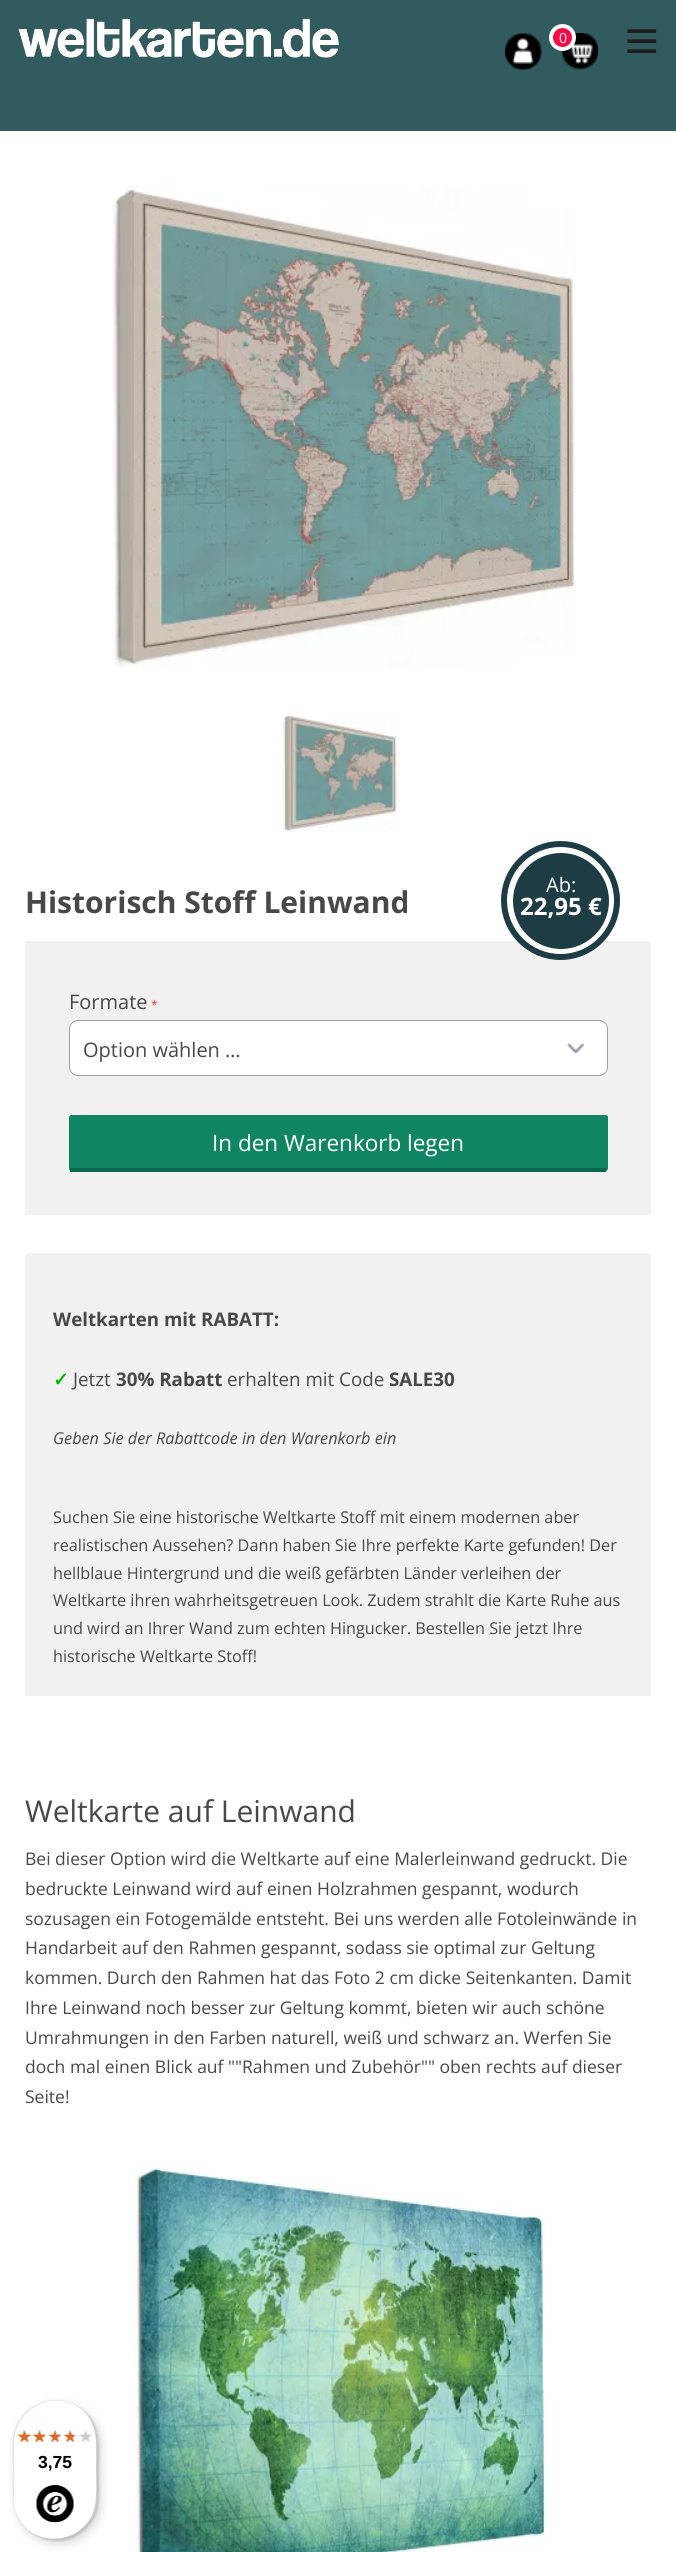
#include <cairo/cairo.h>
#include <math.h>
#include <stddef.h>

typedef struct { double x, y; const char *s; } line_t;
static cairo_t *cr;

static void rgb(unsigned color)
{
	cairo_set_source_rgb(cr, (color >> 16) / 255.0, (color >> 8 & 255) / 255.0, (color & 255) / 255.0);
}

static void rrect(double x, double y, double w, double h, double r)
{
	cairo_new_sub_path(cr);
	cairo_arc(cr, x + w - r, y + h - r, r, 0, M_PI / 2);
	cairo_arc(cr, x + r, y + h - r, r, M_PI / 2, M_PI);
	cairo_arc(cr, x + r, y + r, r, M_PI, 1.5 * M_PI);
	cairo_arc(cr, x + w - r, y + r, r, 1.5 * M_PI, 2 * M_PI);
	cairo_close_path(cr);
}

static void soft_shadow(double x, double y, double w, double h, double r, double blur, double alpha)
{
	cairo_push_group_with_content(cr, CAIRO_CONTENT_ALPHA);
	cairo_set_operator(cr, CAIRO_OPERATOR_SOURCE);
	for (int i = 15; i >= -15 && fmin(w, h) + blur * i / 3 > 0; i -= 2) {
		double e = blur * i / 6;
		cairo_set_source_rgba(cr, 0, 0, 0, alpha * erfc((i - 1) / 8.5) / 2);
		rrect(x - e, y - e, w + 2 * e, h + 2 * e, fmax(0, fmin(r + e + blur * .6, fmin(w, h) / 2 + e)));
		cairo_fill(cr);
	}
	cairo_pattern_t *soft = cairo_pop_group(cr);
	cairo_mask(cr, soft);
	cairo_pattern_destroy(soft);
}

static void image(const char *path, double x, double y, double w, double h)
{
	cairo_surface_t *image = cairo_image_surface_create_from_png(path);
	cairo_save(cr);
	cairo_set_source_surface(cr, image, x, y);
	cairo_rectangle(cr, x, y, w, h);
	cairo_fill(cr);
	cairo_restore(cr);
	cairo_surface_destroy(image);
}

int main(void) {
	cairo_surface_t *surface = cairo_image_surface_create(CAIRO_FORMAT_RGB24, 676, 2552);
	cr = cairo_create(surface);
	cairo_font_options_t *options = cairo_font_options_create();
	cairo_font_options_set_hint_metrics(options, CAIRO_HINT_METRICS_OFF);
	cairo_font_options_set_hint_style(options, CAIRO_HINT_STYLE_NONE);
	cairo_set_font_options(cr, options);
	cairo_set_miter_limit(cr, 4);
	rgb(0xffffff);
	cairo_paint(cr);
	rgb(0x325b5f);
	cairo_rectangle(cr, 0, 0, 676, 131);
	cairo_fill(cr);
	image("img/1.png", 18, 18, 321, 40);
	image("img/2.png", 505, 33, 37, 37);
	image("img/3.png", 561, 33, 38, 37);
	rgb(0xf80a42);
	cairo_arc(cr, 562.5, 37.5, 11.5, 0, 2 * M_PI);
	cairo_fill_preserve(cr);
	rgb(0xffffff);
	cairo_set_line_width(cr, 4);
	cairo_stroke(cr);
	image("img/4.png", 627, 29, 30, 24);
	image("img/5.png", 112, 187, 464, 481);
	image("img/6.png", 282, 715, 118, 117);
	rgb(0xf1f1f1);
	cairo_rectangle(cr, 25, 941, 626, 154);
	cairo_fill(cr);
	rgb(0xffffff);
	cairo_arc(cr, 560.5, 900.5, 56.5, 0, 2 * M_PI);
	cairo_fill_preserve(cr);
	rgb(0x1d3c43);
	cairo_set_line_width(cr, 6);
	cairo_stroke(cr);
	cairo_arc(cr, 561, 901, 48, 0, 2 * M_PI);
	cairo_fill(cr);
	rgb(0xefefef);
	cairo_rectangle(cr, 25, 1095, 626, 1);
	cairo_fill(cr);
	rgb(0xffffff);
	rrect(69, 1020, 539, 56, 9);
	cairo_fill(cr);
	image("img/7.png", 567, 1043, 17, 11);
	rrect(69.5, 1020.5, 538, 55, 8.5);
	rgb(0x9e9e9e);
	cairo_set_line_width(cr, 1);
	cairo_stroke(cr);
	rgb(0xf1f1f1);
	cairo_rectangle(cr, 25, 1096, 626, 119);
	cairo_fill(cr);
	rgb(0x0f8564);
	rrect(69, 1115, 539, 56, 2.5);
	cairo_fill(cr);
	rgb(0x08674d);
	cairo_rectangle(cr, 70, 1168, 536, 4);
	cairo_fill(cr);
	rgb(0xf1f1f1);
	cairo_new_path(cr);
	cairo_move_to(cr, 29, 1253);
	cairo_line_to(cr, 647, 1253);
	cairo_curve_to(cr, 649, 1253, 651, 1255, 651, 1257);
	cairo_line_to(cr, 651, 1699);
	cairo_line_to(cr, 25, 1699);
	cairo_line_to(cr, 25, 1257);
	cairo_curve_to(cr, 25, 1255, 27, 1253, 29, 1253);
	cairo_close_path(cr);
	cairo_fill(cr);
	rgb(0xffffff);
	cairo_rectangle(cr, 25, 1696, 626, 3);
	cairo_fill(cr);
	image("img/8.png", 135, 2167, 411, 385);
	rgb(0x000000);
	soft_shadow(16, 2404, 85, 140, 42.5, 5, 0.15);
	soft_shadow(14, 2401, 85, 140, 42.5, 1, 0.15);
	rgb(0xffffff);
	rrect(13, 2400, 85, 140, 42.5);
	cairo_fill(cr);
	cairo_set_source_rgba(cr, 0, 0, 0, 0.1);
	cairo_new_path(cr);
	cairo_move_to(cr, 56, 2401);
	cairo_curve_to(cr, 69, 2401, 80, 2406, 88, 2415);
	cairo_curve_to(cr, 67, 2391, 29, 2397, 16, 2426);
	cairo_curve_to(cr, 11, 2438, 13, 2456, 13, 2470);
	cairo_curve_to(cr, 13, 2489, 10, 2510, 24, 2526);
	cairo_curve_to(cr, 18, 2518, 14, 2509, 14, 2499);
	cairo_line_to(cr, 14, 2444);
	cairo_curve_to(cr, 14, 2420, 33, 2401, 56, 2401);
	cairo_close_path(cr);
	cairo_fill(cr);
	cairo_set_source_rgba(cr, 0, 0, 0, 0.2);
	cairo_new_path(cr);
	cairo_move_to(cr, 34, 2534);
	cairo_curve_to(cr, 59, 2549, 91, 2535, 97, 2506);
	cairo_curve_to(cr, 99, 2496, 98, 2481, 98, 2470);
	cairo_curve_to(cr, 98, 2444, 102, 2419, 75, 2405);
	cairo_curve_to(cr, 100, 2419, 96, 2444, 96, 2468);
	cairo_curve_to(cr, 96, 2479, 97, 2494, 95, 2505);
	cairo_curve_to(cr, 90, 2533, 59, 2547, 34, 2534);
	cairo_close_path(cr);
	cairo_fill(cr);
	cairo_set_source_rgba(cr, 0.196, 0.196, 0.196, 0.2);
	cairo_new_path(cr);
	cairo_move_to(cr, 27, 2529);
	cairo_curve_to(cr, 35, 2536, 45, 2540, 56, 2540);
	cairo_curve_to(cr, 79, 2540, 98, 2521, 98, 2498);
	cairo_line_to(cr, 98, 2442);
	cairo_curve_to(cr, 98, 2430, 92, 2418, 83, 2410);
	cairo_curve_to(cr, 101, 2426, 97, 2448, 97, 2470);
	cairo_curve_to(cr, 97, 2483, 99, 2501, 94, 2513);
	cairo_curve_to(cr, 82, 2539, 49, 2547, 27, 2529);
	cairo_close_path(cr);
	cairo_fill(cr);
	cairo_set_source_rgba(cr, 1, 1, 1, 0.3);
	cairo_new_path(cr);
	cairo_move_to(cr, 27, 2529);
	cairo_curve_to(cr, 35, 2536, 45, 2540, 56, 2540);
	cairo_curve_to(cr, 79, 2540, 98, 2521, 98, 2498);
	cairo_line_to(cr, 98, 2442);
	cairo_curve_to(cr, 98, 2430, 92, 2418, 83, 2410);
	cairo_curve_to(cr, 101, 2426, 97, 2448, 97, 2470);
	cairo_curve_to(cr, 97, 2483, 99, 2501, 94, 2513);
	cairo_curve_to(cr, 82, 2539, 49, 2547, 27, 2529);
	cairo_close_path(cr);
	cairo_fill(cr);
	image("img/9.png", 17, 2430, 14, 12);
	image("img/10.png", 34, 2430, 12, 12);
	image("img/11.png", 49, 2430, 12, 12);
	image("img/12.png", 64, 2430, 14, 12);
	image("img/12.png", 79, 2430, 14, 12);
	image("img/13.png", 17, 2430, 15, 12);
	image("img/14.png", 32, 2430, 15, 12);
	image("img/15.png", 48, 2430, 14, 12);
	image("img/16.png", 63, 2430, 11, 12);
	image("img/17.png", 36, 2485, 38, 38);
	cairo_select_font_face(cr, "Open Sans", CAIRO_FONT_SLANT_NORMAL, CAIRO_FONT_WEIGHT_NORMAL);
	cairo_set_font_size(cr, 14);
	rgb(0xffffff);
	cairo_move_to(cr, 559, 43);
	cairo_show_text(cr, "0");
	cairo_set_font_size(cr, 20);
	cairo_move_to(cr, 546, 892);
	cairo_show_text(cr, "Ab:");
	cairo_select_font_face(cr, "Open Sans", CAIRO_FONT_SLANT_NORMAL, CAIRO_FONT_WEIGHT_BOLD);
	cairo_set_font_size(cr, 24);
	cairo_move_to(cr, 520, 915);
	cairo_show_text(cr, "22,95 €");
	cairo_select_font_face(cr, "Open Sans", CAIRO_FONT_SLANT_NORMAL, CAIRO_FONT_WEIGHT_NORMAL);
	cairo_set_font_size(cr, 20);
	rgb(0x484848);
	cairo_move_to(cr, 69, 1009);
	cairo_show_text(cr, "Formate");
	cairo_set_font_size(cr, 12);
	rgb(0xde3737);
	cairo_move_to(cr, 151, 1009);
	cairo_show_text(cr, "*");
	cairo_set_font_size(cr, 20);
	rgb(0x484848);
	cairo_move_to(cr, 83, 1057);
	cairo_show_text(cr, "Option wählen …");
	cairo_set_font_size(cr, 22.5);
	rgb(0xffffff);
	cairo_move_to(cr, 212, 1151);
	cairo_show_text(cr, "In den Warenkorb legen");
	cairo_select_font_face(cr, "Open Sans", CAIRO_FONT_SLANT_NORMAL, CAIRO_FONT_WEIGHT_BOLD);
	cairo_set_font_size(cr, 30);
	rgb(0x484848);
	cairo_move_to(cr, 25, 913);
	cairo_show_text(cr, "Historisch Stoff Leinwand");
	cairo_set_font_size(cr, 18.75);
	cairo_move_to(cr, 53, 1326);
	cairo_show_text(cr, "Weltkarten mit RABATT:");
	cairo_select_font_face(cr, "DejaVu Sans", CAIRO_FONT_SLANT_NORMAL, CAIRO_FONT_WEIGHT_BOLD);
	rgb(0x00b900);
	cairo_move_to(cr, 53, 1386);
	cairo_show_text(cr, "✓");
	cairo_select_font_face(cr, "Open Sans", CAIRO_FONT_SLANT_NORMAL, CAIRO_FONT_WEIGHT_NORMAL);
	rgb(0x484848);
	cairo_move_to(cr, 73, 1386);
	cairo_show_text(cr, "Jetzt");
	cairo_select_font_face(cr, "Open Sans", CAIRO_FONT_SLANT_NORMAL, CAIRO_FONT_WEIGHT_BOLD);
	cairo_move_to(cr, 116, 1386);
	cairo_show_text(cr, "30% Rabatt");
	cairo_select_font_face(cr, "Open Sans", CAIRO_FONT_SLANT_NORMAL, CAIRO_FONT_WEIGHT_NORMAL);
	cairo_move_to(cr, 227, 1386);
	cairo_show_text(cr, "erhalten mit Code");
	cairo_select_font_face(cr, "Open Sans", CAIRO_FONT_SLANT_NORMAL, CAIRO_FONT_WEIGHT_BOLD);
	cairo_move_to(cr, 389, 1386);
	cairo_show_text(cr, "SALE30");
	cairo_select_font_face(cr, "Open Sans", CAIRO_FONT_SLANT_ITALIC, CAIRO_FONT_WEIGHT_NORMAL);
	cairo_set_font_size(cr, 16.25);
	cairo_move_to(cr, 53, 1444);
	cairo_show_text(cr, "Geben Sie der Rabattcode in den Warenkorb ein");
	cairo_select_font_face(cr, "Open Sans", CAIRO_FONT_SLANT_NORMAL, CAIRO_FONT_WEIGHT_NORMAL);
	{
		static const line_t items[] = {
			{53, 1523, "Suchen Sie eine historische Weltkarte Stoff mit einem modernen aber"},
			{53, 1551, "realistischen Aussehen? Dann haben Sie Ihre perfekte Karte gefunden! Der"},
			{53, 1579, "hellblaue Hintergrund und die weiß gefärbten Länder verleihen der"},
			{53, 1606, "Weltkarte ihren wahrheitsgetreuen Look. Zudem strahlt die Karte Ruhe aus"},
			{53, 1634, "und wird an Ihrer Wand zum echten Hingucker. Bestellen Sie jetzt Ihre"},
			{53, 1662, "historische Weltkarte Stoff!"},
		};
		for (size_t i = 0; i < sizeof items / sizeof *items; i++) {
			cairo_move_to(cr, items[i].x, items[i].y);
			cairo_show_text(cr, items[i].s);
		}
	}
	cairo_set_font_size(cr, 30);
	cairo_move_to(cr, 25, 1822);
	cairo_show_text(cr, "Weltkarte auf Leinwand");
	cairo_set_font_size(cr, 17.5);
	{
		static const line_t items[] = {
			{25, 1865, "Bei dieser Option wird die Weltkarte auf eine Malerleinwand gedruckt. Die"},
			{25, 1895, "bedruckte Leinwand wird auf einen Holzrahmen gespannt, wodurch"},
			{25, 1925, "sozusagen ein Fotogemälde entsteht. Bei uns werden alle Fotoleinwände in"},
			{25, 1954, "Handarbeit auf den Rahmen gespannt, sodass sie optimal zur Geltung"},
			{25, 1984, "kommen. Durch den Rahmen hat das Foto 2 cm dicke Seitenkanten. Damit"},
			{25, 2014, "Ihre Leinwand noch besser zur Geltung kommt, bieten wir auch schöne"},
			{25, 2044, "Umrahmungen in den Farben naturell, weiß und schwarz an. Werfen Sie"},
			{25, 2073, "doch mal einen Blick auf \"\"Rahmen und Zubehör\"\" oben rechts auf dieser"},
			{25, 2103, "Seite!"},
		};
		for (size_t i = 0; i < sizeof items / sizeof *items; i++) {
			cairo_move_to(cr, items[i].x, items[i].y);
			cairo_show_text(cr, items[i].s);
		}
	}
	cairo_select_font_face(cr, "Liberation Sans", CAIRO_FONT_SLANT_NORMAL, CAIRO_FONT_WEIGHT_BOLD);
	rgb(0x000000);
	cairo_move_to(cr, 38, 2468);
	cairo_show_text(cr, "3,75");
	cairo_surface_write_to_png(surface, "page.png");
	cairo_font_options_destroy(options);
	cairo_destroy(cr);
	cairo_surface_destroy(surface);
	return 0;
}
